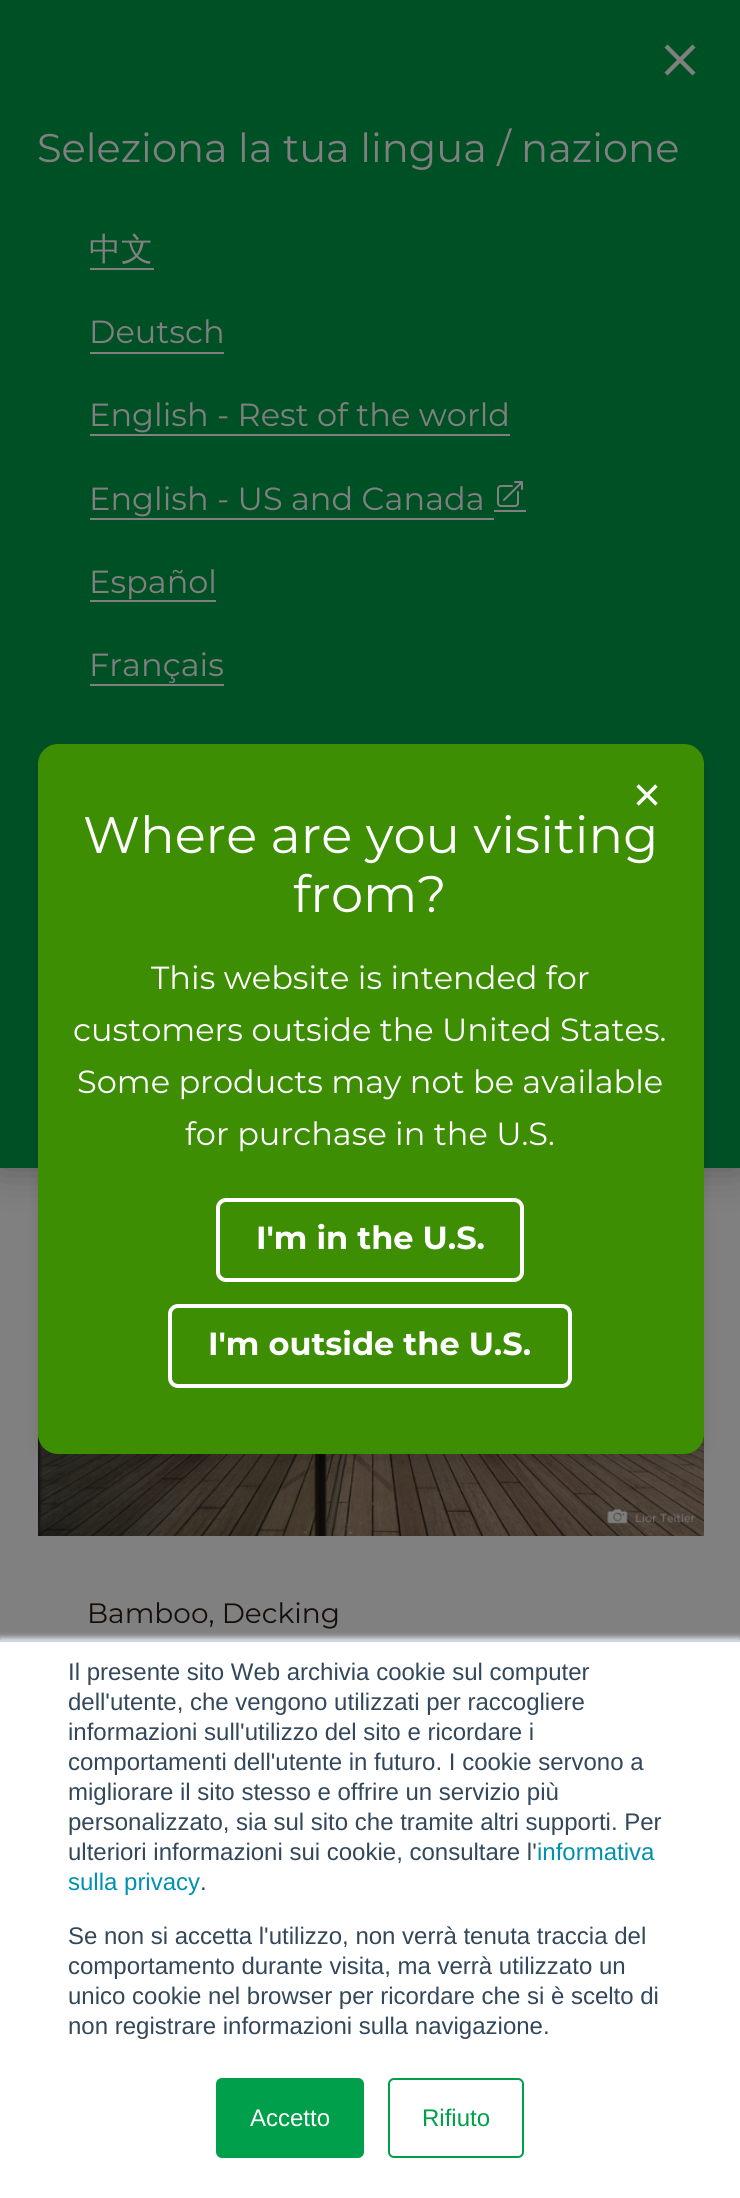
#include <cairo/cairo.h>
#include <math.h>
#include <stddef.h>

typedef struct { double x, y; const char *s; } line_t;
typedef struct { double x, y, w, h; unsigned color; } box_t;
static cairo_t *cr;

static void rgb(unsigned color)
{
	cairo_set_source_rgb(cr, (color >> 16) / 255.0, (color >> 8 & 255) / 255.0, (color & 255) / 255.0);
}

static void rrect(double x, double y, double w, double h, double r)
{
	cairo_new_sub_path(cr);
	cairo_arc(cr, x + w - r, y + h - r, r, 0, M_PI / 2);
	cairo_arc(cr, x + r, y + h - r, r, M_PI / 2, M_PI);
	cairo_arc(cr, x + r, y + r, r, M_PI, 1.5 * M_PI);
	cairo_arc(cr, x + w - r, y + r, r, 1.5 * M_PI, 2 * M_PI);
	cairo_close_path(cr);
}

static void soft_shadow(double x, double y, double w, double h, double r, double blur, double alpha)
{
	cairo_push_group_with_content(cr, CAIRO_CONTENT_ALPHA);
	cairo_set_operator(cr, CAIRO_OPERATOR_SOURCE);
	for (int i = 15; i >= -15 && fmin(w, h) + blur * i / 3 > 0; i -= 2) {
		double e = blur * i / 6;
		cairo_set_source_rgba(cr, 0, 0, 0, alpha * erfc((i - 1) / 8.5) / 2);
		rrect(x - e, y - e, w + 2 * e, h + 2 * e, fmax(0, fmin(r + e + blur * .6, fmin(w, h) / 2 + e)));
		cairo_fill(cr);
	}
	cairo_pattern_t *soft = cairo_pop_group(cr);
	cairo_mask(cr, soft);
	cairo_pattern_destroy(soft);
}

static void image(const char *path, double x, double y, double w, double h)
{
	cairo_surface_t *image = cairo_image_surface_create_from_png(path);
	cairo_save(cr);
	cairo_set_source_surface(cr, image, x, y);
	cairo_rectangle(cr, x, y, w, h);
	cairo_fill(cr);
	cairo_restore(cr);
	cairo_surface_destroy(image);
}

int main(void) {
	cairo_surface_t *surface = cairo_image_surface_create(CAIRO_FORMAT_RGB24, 740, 2198);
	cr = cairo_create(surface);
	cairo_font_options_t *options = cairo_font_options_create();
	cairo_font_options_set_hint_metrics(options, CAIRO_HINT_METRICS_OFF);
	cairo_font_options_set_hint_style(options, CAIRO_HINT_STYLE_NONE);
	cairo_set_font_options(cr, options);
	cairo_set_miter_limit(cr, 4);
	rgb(0x808080);
	cairo_paint(cr);
	rgb(0x000000);
	soft_shadow(0, 0, 740, 1168, 0, 20, 0.3);
	rgb(0x005026);
	cairo_rectangle(cr, 0, 0, 740, 1168);
	cairo_fill(cr);
	rgb(0x808080);
	cairo_new_path(cr);
	cairo_move_to(cr, 667.5, 44.5);
	cairo_line_to(cr, 695.5, 72.5);
	cairo_line_to(cr, 692.5, 75.5);
	cairo_line_to(cr, 664.5, 47.5);
	cairo_close_path(cr);
	cairo_fill(cr);
	cairo_new_path(cr);
	cairo_move_to(cr, 695.5, 47.5);
	cairo_line_to(cr, 667.5, 75.5);
	cairo_line_to(cr, 664.5, 72.5);
	cairo_line_to(cr, 692.5, 44.5);
	cairo_close_path(cr);
	cairo_fill(cr);
	{
		static const box_t items[] = {
			{90, 268, 64, 2, 0x808080},
			{90, 352, 134, 2, 0x808080},
			{90, 434, 420, 2, 0x808080},
			{90, 518, 404, 2, 0x808080},
			{494, 510, 32, 2, 0x808080},
		};
		for (size_t i = 0; i < sizeof items / sizeof *items; i++) {
			rgb(items[i].color);
			cairo_rectangle(cr, items[i].x, items[i].y, items[i].w, items[i].h);
			cairo_fill(cr);
		}
	}
	image("img/1.png", 497, 481, 26, 26);
	cairo_rectangle(cr, 90, 600, 126, 2);
	cairo_fill(cr);
	cairo_rectangle(cr, 90, 684, 134, 2);
	cairo_fill(cr);
	image("img/2.png", 38, 1434, 666, 102);
	rgb(0x000000);
	soft_shadow(38, 752, 666, 710, 20, 6, 0.1);
	rgb(0x3d8e03);
	rrect(38, 744, 666, 710, 20);
	cairo_fill(cr);
	rrect(218, 1200, 304, 80, 8);
	rgb(0xffffff);
	cairo_set_line_width(cr, 4);
	cairo_stroke(cr);
	rrect(170, 1306, 400, 80, 8);
	cairo_stroke(cr);
	rgb(0xeaf0f6);
	soft_shadow(0, 1638, 740, 558, 0, 3, 1);
	rgb(0xffffff);
	cairo_rectangle(cr, 0, 1642, 740, 556);
	cairo_fill(cr);
	rgb(0xcbd6e2);
	cairo_rectangle(cr, 0, 1640, 740, 2);
	cairo_fill(cr);
	rgb(0x009f4b);
	rrect(217, 2079, 146, 78, 5);
	cairo_fill_preserve(cr);
	cairo_set_line_width(cr, 2);
	cairo_stroke(cr);
	rrect(389, 2079, 134, 78, 5);
	cairo_stroke(cr);
	cairo_select_font_face(cr, "Montserrat", CAIRO_FONT_SLANT_NORMAL, CAIRO_FONT_WEIGHT_NORMAL);
	cairo_set_font_size(cr, 40);
	rgb(0x808080);
	cairo_move_to(cr, 37, 162);
	cairo_show_text(cr, "Seleziona la tua lingua / nazione");
	cairo_select_font_face(cr, "WenQuanYi Zen Hei Medium", CAIRO_FONT_SLANT_NORMAL, CAIRO_FONT_WEIGHT_NORMAL);
	cairo_set_font_size(cr, 32);
	cairo_move_to(cr, 89, 260);
	cairo_show_text(cr, "中文");
	cairo_select_font_face(cr, "Montserrat", CAIRO_FONT_SLANT_NORMAL, CAIRO_FONT_WEIGHT_NORMAL);
	{
		static const line_t items[] = {
			{89, 343, "Deutsch"},
			{89, 426, "English - Rest of the world"},
			{89, 510, "English - US and Canada"},
			{89, 593, "Español"},
			{89, 676, "Français"},
		};
		for (size_t i = 0; i < sizeof items / sizeof *items; i++) {
			cairo_move_to(cr, items[i].x, items[i].y);
			cairo_show_text(cr, items[i].s);
		}
	}
	cairo_select_font_face(cr, "Liberation Sans", CAIRO_FONT_SLANT_NORMAL, CAIRO_FONT_WEIGHT_NORMAL);
	cairo_set_font_size(cr, 48);
	rgb(0xffffff);
	cairo_move_to(cr, 633, 811);
	cairo_show_text(cr, "×");
	cairo_select_font_face(cr, "Montserrat", CAIRO_FONT_SLANT_NORMAL, CAIRO_FONT_WEIGHT_NORMAL);
	cairo_set_font_size(cr, 51.25);
	cairo_move_to(cr, 83, 853);
	cairo_show_text(cr, "Where are you visiting");
	cairo_move_to(cr, 293, 912);
	cairo_show_text(cr, "from?");
	cairo_set_font_size(cr, 32);
	{
		static const line_t items[] = {
			{151, 989, "This website is intended for"},
			{73, 1041, "customers outside the United States."},
			{77, 1093, "Some products may not be available"},
			{185, 1145, "for purchase in the U.S."},
		};
		for (size_t i = 0; i < sizeof items / sizeof *items; i++) {
			cairo_move_to(cr, items[i].x, items[i].y);
			cairo_show_text(cr, items[i].s);
		}
	}
	cairo_select_font_face(cr, "Montserrat", CAIRO_FONT_SLANT_NORMAL, CAIRO_FONT_WEIGHT_BOLD);
	cairo_move_to(cr, 256, 1249);
	cairo_show_text(cr, "I'm in the U.S.");
	cairo_move_to(cr, 208, 1355);
	cairo_show_text(cr, "I'm outside the U.S.");
	cairo_select_font_face(cr, "Montserrat", CAIRO_FONT_SLANT_NORMAL, CAIRO_FONT_WEIGHT_NORMAL);
	cairo_set_font_size(cr, 28);
	rgb(0x150e09);
	cairo_move_to(cr, 87, 1623);
	cairo_show_text(cr, "Bamboo, Decking");
	cairo_select_font_face(cr, "Liberation Sans", CAIRO_FONT_SLANT_NORMAL, CAIRO_FONT_WEIGHT_NORMAL);
	cairo_set_font_size(cr, 24);
	rgb(0x33475b);
	{
		static const line_t items[] = {
			{68, 1680, "Il presente sito Web archivia cookie sul computer"},
			{68, 1710, "dell'utente, che vengono utilizzati per raccogliere"},
			{68, 1740, "informazioni sull'utilizzo del sito e ricordare i"},
			{68, 1770, "comportamenti dell'utente in futuro. I cookie servono a"},
			{68, 1800, "migliorare il sito stesso e offrire un servizio più"},
			{68, 1830, "personalizzato, sia sul sito che tramite altri supporti. Per"},
			{68, 1860, "ulteriori informazioni sui cookie, consultare l'"},
		};
		for (size_t i = 0; i < sizeof items / sizeof *items; i++) {
			cairo_move_to(cr, items[i].x, items[i].y);
			cairo_show_text(cr, items[i].s);
		}
	}
	rgb(0x0091ae);
	cairo_move_to(cr, 537, 1860);
	cairo_show_text(cr, "informativa");
	cairo_move_to(cr, 68, 1890);
	cairo_show_text(cr, "sulla privacy");
	rgb(0x33475b);
	{
		static const line_t items[] = {
			{200, 1890, "."},
			{68, 1944, "Se non si accetta l'utilizzo, non verrà tenuta traccia del"},
			{68, 1974, "comportamento durante visita, ma verrà utilizzato un"},
			{68, 2004, "unico cookie nel browser per ricordare che si è scelto di"},
			{68, 2034, "non registrare informazioni sulla navigazione."},
		};
		for (size_t i = 0; i < sizeof items / sizeof *items; i++) {
			cairo_move_to(cr, items[i].x, items[i].y);
			cairo_show_text(cr, items[i].s);
		}
	}
	rgb(0xffffff);
	cairo_move_to(cr, 250, 2126);
	cairo_show_text(cr, "Accetto");
	rgb(0x009f4b);
	cairo_move_to(cr, 422, 2126);
	cairo_show_text(cr, "Rifiuto");
	cairo_surface_write_to_png(surface, "page.png");
	cairo_font_options_destroy(options);
	cairo_destroy(cr);
	cairo_surface_destroy(surface);
	return 0;
}
